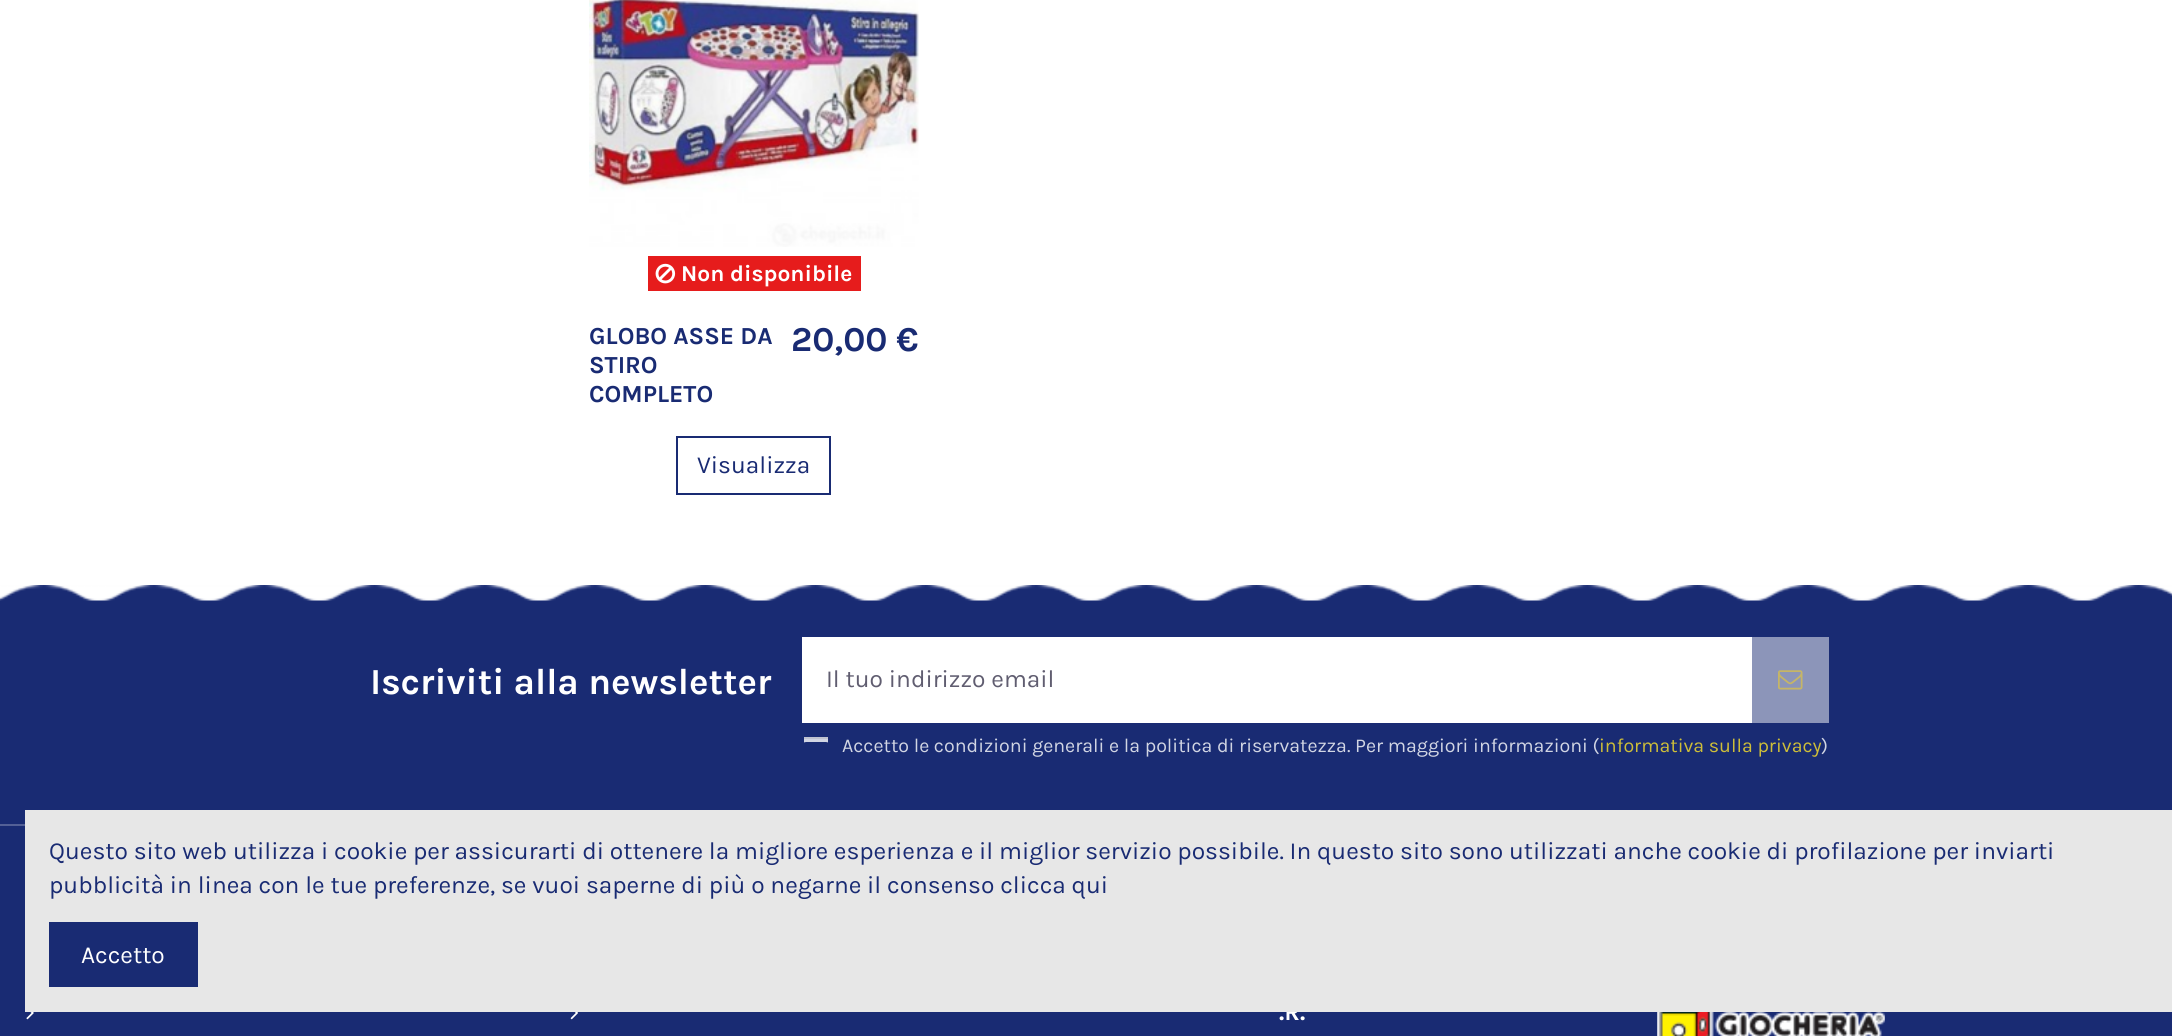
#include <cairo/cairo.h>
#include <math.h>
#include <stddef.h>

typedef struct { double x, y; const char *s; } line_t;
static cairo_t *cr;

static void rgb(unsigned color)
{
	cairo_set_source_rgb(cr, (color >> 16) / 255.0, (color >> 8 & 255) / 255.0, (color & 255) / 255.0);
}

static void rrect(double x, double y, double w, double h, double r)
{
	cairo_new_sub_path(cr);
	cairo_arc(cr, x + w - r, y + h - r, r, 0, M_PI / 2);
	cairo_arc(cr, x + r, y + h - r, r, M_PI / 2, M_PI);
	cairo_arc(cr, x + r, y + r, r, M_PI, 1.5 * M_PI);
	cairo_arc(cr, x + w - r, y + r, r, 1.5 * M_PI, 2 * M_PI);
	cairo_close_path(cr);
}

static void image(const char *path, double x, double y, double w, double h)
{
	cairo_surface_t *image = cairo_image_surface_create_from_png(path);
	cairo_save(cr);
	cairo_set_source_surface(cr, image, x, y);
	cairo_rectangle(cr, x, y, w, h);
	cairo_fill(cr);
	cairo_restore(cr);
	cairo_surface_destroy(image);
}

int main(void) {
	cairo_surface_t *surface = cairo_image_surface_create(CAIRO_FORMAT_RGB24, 2172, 1036);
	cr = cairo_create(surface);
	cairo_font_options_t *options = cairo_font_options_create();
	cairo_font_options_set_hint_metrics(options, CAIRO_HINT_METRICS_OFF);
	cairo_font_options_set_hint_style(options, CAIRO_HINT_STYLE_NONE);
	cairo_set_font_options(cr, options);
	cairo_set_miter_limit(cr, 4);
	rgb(0xffffff);
	cairo_paint(cr);
	image("img/1.png", 589, 0, 330, 247);
	rgb(0xe61c1c);
	cairo_rectangle(cr, 648, 256, 213, 35);
	cairo_fill(cr);
	image("img/2.png", 655, 263, 21, 21);
	cairo_rectangle(cr, 677, 437, 153, 57);
	rgb(0x192b73);
	cairo_stroke(cr);
	cairo_rectangle(cr, 0, 585, 2172, 451);
	cairo_fill(cr);
	image("img/3.png", 0, 585, 2172, 16);
	rgb(0xffffff);
	cairo_rectangle(cr, 802, 637, 950, 86);
	cairo_fill(cr);
	rgb(0x8c95b9);
	cairo_rectangle(cr, 1752, 637, 77, 86);
	cairo_fill(cr);
	image("img/4.png", 1778, 670, 25, 20);
	rgb(0xd1d5e3);
	cairo_rectangle(cr, 804, 739, 24, 4);
	cairo_fill(cr);
	rgb(0xbfc3d1);
	cairo_rectangle(cr, 803, 737, 25, 2);
	cairo_fill(cr);
	cairo_rectangle(cr, 803, 736, 26, 26);
	rgb(0x192b73);
	cairo_stroke(cr);
	rrect(803, 743, 26, 26, 3);
	cairo_fill_preserve(cr);
	cairo_stroke(cr);
	rgb(0x536096);
	cairo_rectangle(cr, 0, 824, 25, 2);
	cairo_fill(cr);
	image("img/5.png", 26, 1012, 8, 8);
	image("img/6.png", 570, 1012, 8, 8);
	image("img/7.png", 1657, 1012, 228, 24);
	cairo_select_font_face(cr, "Karla", CAIRO_FONT_SLANT_NORMAL, CAIRO_FONT_WEIGHT_BOLD);
	cairo_set_font_size(cr, 22.75);
	rgb(0xffffff);
	cairo_move_to(cr, 681, 281);
	cairo_show_text(cr, "Non disponibile");
	cairo_set_font_size(cr, 24.5);
	rgb(0x192b73);
	{
		static const line_t items[] = {
			{589, 344, "GLOBO ASSE DA"},
			{589, 373, "STIRO"},
			{589, 402, "COMPLETO"},
		};
		for (size_t i = 0; i < sizeof items / sizeof *items; i++) {
			cairo_move_to(cr, items[i].x, items[i].y);
			cairo_show_text(cr, items[i].s);
		}
	}
	cairo_set_font_size(cr, 35);
	cairo_move_to(cr, 791, 351);
	cairo_show_text(cr, "20,00 €");
	cairo_select_font_face(cr, "Karla", CAIRO_FONT_SLANT_NORMAL, CAIRO_FONT_WEIGHT_NORMAL);
	cairo_set_font_size(cr, 24.5);
	cairo_move_to(cr, 697, 473);
	cairo_show_text(cr, "Visualizza");
	cairo_select_font_face(cr, "Karla", CAIRO_FONT_SLANT_NORMAL, CAIRO_FONT_WEIGHT_BOLD);
	cairo_set_font_size(cr, 36.75);
	rgb(0xffffff);
	cairo_move_to(cr, 370, 694);
	cairo_show_text(cr, "Iscriviti alla newsletter");
	cairo_select_font_face(cr, "Karla", CAIRO_FONT_SLANT_NORMAL, CAIRO_FONT_WEIGHT_NORMAL);
	cairo_set_font_size(cr, 24.5);
	rgb(0x605d70);
	cairo_move_to(cr, 826, 687);
	cairo_show_text(cr, "Il tuo indirizzo email");
	cairo_set_font_size(cr, 19.6);
	rgb(0xd1d5e3);
	cairo_move_to(cr, 842, 752);
	cairo_show_text(cr, "Accetto le condizioni generali e la politica di riservatezza. Per maggiori informazioni (");
	rgb(0xcebe38);
	cairo_move_to(cr, 1599, 752);
	cairo_show_text(cr, "informativa sulla privacy");
	rgb(0xd1d5e3);
	cairo_move_to(cr, 1821, 752);
	cairo_show_text(cr, ")");
	cairo_select_font_face(cr, "Karla", CAIRO_FONT_SLANT_NORMAL, CAIRO_FONT_WEIGHT_BOLD);
	cairo_set_font_size(cr, 24.5);
	rgb(0xffffff);
	cairo_move_to(cr, 1279, 1020);
	cairo_show_text(cr, ".R.");
	rgb(0xe7e7e7);
	cairo_rectangle(cr, 25, 810, 2147, 202);
	cairo_fill(cr);
	cairo_select_font_face(cr, "Karla", CAIRO_FONT_SLANT_NORMAL, CAIRO_FONT_WEIGHT_NORMAL);
	rgb(0x192b73);
	cairo_move_to(cr, 49, 859);
	cairo_show_text(cr, "Questo sito web utilizza i cookie per assicurarti di ottenere la migliore esperienza e il miglior servizio possibile. In questo sito sono utilizzati anche cookie di profilazione per inviarti");
	cairo_move_to(cr, 49, 893);
	cairo_show_text(cr, "pubblicità in linea con le tue preferenze, se vuoi saperne di più o negarne il consenso clicca qui");
	cairo_rectangle(cr, 49, 922, 149, 65);
	cairo_fill(cr);
	rgb(0xffffff);
	cairo_move_to(cr, 81, 963);
	cairo_show_text(cr, "Accetto");
	cairo_surface_write_to_png(surface, "page.png");
	cairo_font_options_destroy(options);
	cairo_destroy(cr);
	cairo_surface_destroy(surface);
	return 0;
}
